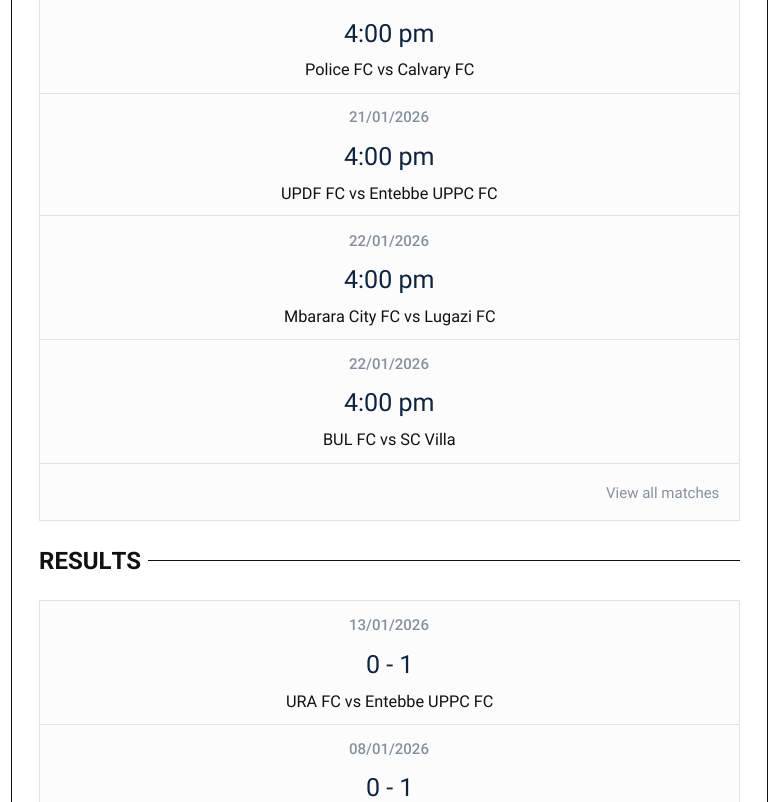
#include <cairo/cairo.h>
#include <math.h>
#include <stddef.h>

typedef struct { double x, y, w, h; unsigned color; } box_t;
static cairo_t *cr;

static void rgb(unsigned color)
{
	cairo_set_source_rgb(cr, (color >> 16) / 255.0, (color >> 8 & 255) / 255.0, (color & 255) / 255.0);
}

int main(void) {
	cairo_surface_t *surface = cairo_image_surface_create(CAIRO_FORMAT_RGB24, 778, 802);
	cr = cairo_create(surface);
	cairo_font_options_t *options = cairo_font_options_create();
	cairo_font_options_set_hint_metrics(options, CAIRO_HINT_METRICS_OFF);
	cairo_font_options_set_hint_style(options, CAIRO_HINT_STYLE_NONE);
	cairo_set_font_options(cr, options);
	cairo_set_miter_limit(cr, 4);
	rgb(0xffffff);
	cairo_paint(cr);
	rgb(0x111111);
	cairo_rectangle(cr, 148, 560, 592, 1);
	cairo_fill(cr);
	cairo_rectangle(cr, 11.5, -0.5, 756, 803);
	cairo_set_line_width(cr, 1);
	cairo_stroke(cr);
	{
		static const box_t items[] = {
			{40, 0, 699, 463, 0xfcfcfc},
			{739, 0, 1, 521, 0xe2e2e2},
			{39, 463, 701, 1, 0xe2e2e2},
			{39, 0, 1, 464, 0xe2e2e2},
			{39, 93, 701, 1, 0xe2e2e2},
			{39, 215, 701, 1, 0xe2e2e2},
			{39, 339, 701, 1, 0xe2e2e2},
			{40, 464, 699, 56, 0xfcfcfc},
			{39, 520, 701, 1, 0xe2e2e2},
			{39, 464, 1, 57, 0xe2e2e2},
			{40, 601, 699, 201, 0xfcfcfc},
			{39, 600, 701, 1, 0xe2e2e2},
			{739, 600, 1, 202, 0xe2e2e2},
			{39, 600, 1, 202, 0xe2e2e2},
			{39, 724, 701, 1, 0xe2e2e2},
		};
		for (size_t i = 0; i < sizeof items / sizeof *items; i++) {
			rgb(items[i].color);
			cairo_rectangle(cr, items[i].x, items[i].y, items[i].w, items[i].h);
			cairo_fill(cr);
		}
	}
	cairo_select_font_face(cr, "Roboto", CAIRO_FONT_SLANT_NORMAL, CAIRO_FONT_WEIGHT_NORMAL);
	cairo_set_font_size(cr, 25);
	rgb(0x0e2440);
	cairo_move_to(cr, 344, 42);
	cairo_show_text(cr, "4:00 pm");
	cairo_set_font_size(cr, 16.25);
	rgb(0x111111);
	cairo_move_to(cr, 305, 75);
	cairo_show_text(cr, "Police FC vs Calvary FC");
	cairo_select_font_face(cr, "Roboto Medium", CAIRO_FONT_SLANT_NORMAL, CAIRO_FONT_WEIGHT_NORMAL);
	cairo_set_font_size(cr, 15);
	rgb(0x85909e);
	cairo_move_to(cr, 349, 122);
	cairo_show_text(cr, "21/01/2026");
	cairo_select_font_face(cr, "Roboto", CAIRO_FONT_SLANT_NORMAL, CAIRO_FONT_WEIGHT_NORMAL);
	cairo_set_font_size(cr, 25);
	rgb(0x0e2440);
	cairo_move_to(cr, 344, 165);
	cairo_show_text(cr, "4:00 pm");
	cairo_set_font_size(cr, 16.25);
	rgb(0x111111);
	cairo_move_to(cr, 281, 199);
	cairo_show_text(cr, "UPDF FC vs Entebbe UPPC FC");
	cairo_select_font_face(cr, "Roboto Medium", CAIRO_FONT_SLANT_NORMAL, CAIRO_FONT_WEIGHT_NORMAL);
	cairo_set_font_size(cr, 15);
	rgb(0x85909e);
	cairo_move_to(cr, 349, 246);
	cairo_show_text(cr, "22/01/2026");
	cairo_select_font_face(cr, "Roboto", CAIRO_FONT_SLANT_NORMAL, CAIRO_FONT_WEIGHT_NORMAL);
	cairo_set_font_size(cr, 25);
	rgb(0x0e2440);
	cairo_move_to(cr, 344, 288);
	cairo_show_text(cr, "4:00 pm");
	cairo_set_font_size(cr, 16.25);
	rgb(0x111111);
	cairo_move_to(cr, 284, 322);
	cairo_show_text(cr, "Mbarara City FC vs Lugazi FC");
	cairo_select_font_face(cr, "Roboto Medium", CAIRO_FONT_SLANT_NORMAL, CAIRO_FONT_WEIGHT_NORMAL);
	cairo_set_font_size(cr, 15);
	rgb(0x85909e);
	cairo_move_to(cr, 349, 369);
	cairo_show_text(cr, "22/01/2026");
	cairo_select_font_face(cr, "Roboto", CAIRO_FONT_SLANT_NORMAL, CAIRO_FONT_WEIGHT_NORMAL);
	cairo_set_font_size(cr, 25);
	rgb(0x0e2440);
	cairo_move_to(cr, 344, 411);
	cairo_show_text(cr, "4:00 pm");
	cairo_set_font_size(cr, 16.25);
	rgb(0x111111);
	cairo_move_to(cr, 323, 445);
	cairo_show_text(cr, "BUL FC vs SC Villa");
	cairo_set_font_size(cr, 15);
	rgb(0x85909e);
	cairo_move_to(cr, 606, 498);
	cairo_show_text(cr, "View all matches");
	cairo_select_font_face(cr, "Roboto", CAIRO_FONT_SLANT_NORMAL, CAIRO_FONT_WEIGHT_BOLD);
	cairo_set_font_size(cr, 24);
	rgb(0x111111);
	cairo_move_to(cr, 39, 569);
	cairo_show_text(cr, "RESULTS");
	cairo_select_font_face(cr, "Roboto Medium", CAIRO_FONT_SLANT_NORMAL, CAIRO_FONT_WEIGHT_NORMAL);
	cairo_set_font_size(cr, 15);
	rgb(0x85909e);
	cairo_move_to(cr, 349, 630);
	cairo_show_text(cr, "13/01/2026");
	cairo_select_font_face(cr, "Roboto", CAIRO_FONT_SLANT_NORMAL, CAIRO_FONT_WEIGHT_NORMAL);
	cairo_set_font_size(cr, 25);
	rgb(0x0e2440);
	cairo_move_to(cr, 366, 673);
	cairo_show_text(cr, "0 - 1");
	cairo_set_font_size(cr, 16.25);
	rgb(0x111111);
	cairo_move_to(cr, 286, 707);
	cairo_show_text(cr, "URA FC vs Entebbe UPPC FC");
	cairo_select_font_face(cr, "Roboto Medium", CAIRO_FONT_SLANT_NORMAL, CAIRO_FONT_WEIGHT_NORMAL);
	cairo_set_font_size(cr, 15);
	rgb(0x85909e);
	cairo_move_to(cr, 349, 754);
	cairo_show_text(cr, "08/01/2026");
	cairo_select_font_face(cr, "Roboto", CAIRO_FONT_SLANT_NORMAL, CAIRO_FONT_WEIGHT_NORMAL);
	cairo_set_font_size(cr, 25);
	rgb(0x0e2440);
	cairo_move_to(cr, 366, 796);
	cairo_show_text(cr, "0 - 1");
	cairo_surface_write_to_png(surface, "page.png");
	cairo_font_options_destroy(options);
	cairo_destroy(cr);
	cairo_surface_destroy(surface);
	return 0;
}
